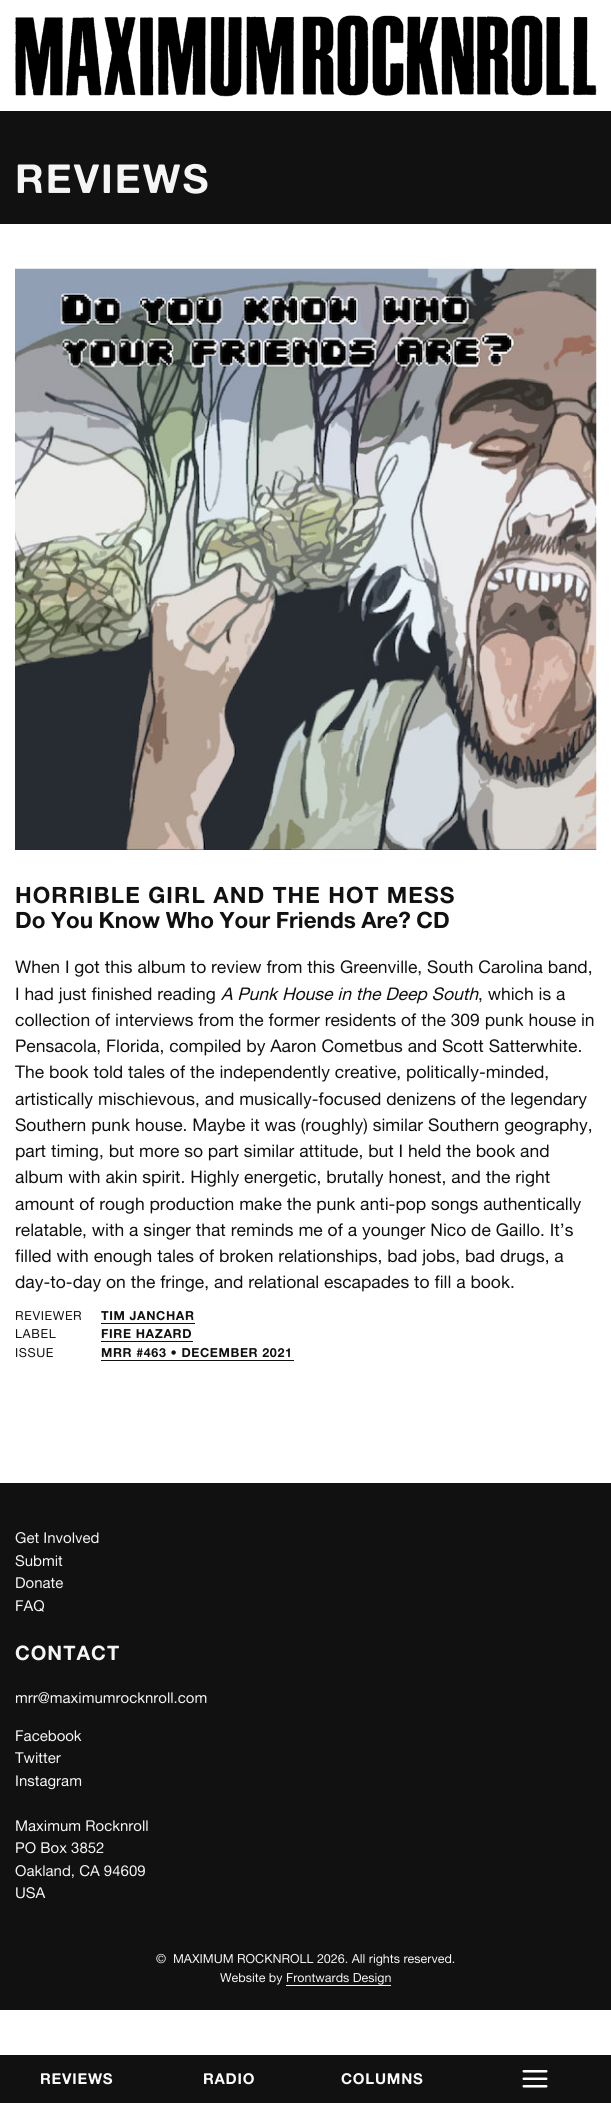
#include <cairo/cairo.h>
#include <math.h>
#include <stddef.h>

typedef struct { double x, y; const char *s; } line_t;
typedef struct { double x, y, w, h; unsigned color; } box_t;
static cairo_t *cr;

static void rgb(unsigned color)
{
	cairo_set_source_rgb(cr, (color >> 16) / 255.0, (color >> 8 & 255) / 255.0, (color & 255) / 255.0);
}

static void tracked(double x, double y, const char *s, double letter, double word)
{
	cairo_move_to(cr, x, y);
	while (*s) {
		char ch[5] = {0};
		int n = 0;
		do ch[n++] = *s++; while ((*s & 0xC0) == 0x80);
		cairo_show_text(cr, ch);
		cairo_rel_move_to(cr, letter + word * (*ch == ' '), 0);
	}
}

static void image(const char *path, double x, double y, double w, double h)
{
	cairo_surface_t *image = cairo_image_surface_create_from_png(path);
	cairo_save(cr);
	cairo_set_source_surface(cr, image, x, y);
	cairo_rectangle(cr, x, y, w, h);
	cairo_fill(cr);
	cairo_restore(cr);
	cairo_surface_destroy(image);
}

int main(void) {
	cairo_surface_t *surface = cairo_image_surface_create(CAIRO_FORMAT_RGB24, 611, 2103);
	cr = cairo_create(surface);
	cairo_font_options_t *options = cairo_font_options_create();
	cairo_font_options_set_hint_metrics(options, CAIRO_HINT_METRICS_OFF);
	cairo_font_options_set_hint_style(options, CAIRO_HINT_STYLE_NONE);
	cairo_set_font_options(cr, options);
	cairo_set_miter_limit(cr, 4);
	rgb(0xffffff);
	cairo_paint(cr);
	rgb(0x111111);
	cairo_rectangle(cr, 0, 111, 611, 113);
	cairo_fill(cr);
	image("img/1.png", 15, 268, 582, 582);
	{
		static const box_t items[] = {
			{101, 1323, 94, 1, 0x111111},
			{101, 1341, 92, 1, 0x111111},
			{101, 1360, 193, 1, 0x111111},
			{0, 1483, 611, 527, 0x111111},
			{286, 1985, 105, 1, 0xf5f5f5},
		};
		for (size_t i = 0; i < sizeof items / sizeof *items; i++) {
			rgb(items[i].color);
			cairo_rectangle(cr, items[i].x, items[i].y, items[i].w, items[i].h);
			cairo_fill(cr);
		}
	}
	image("img/2.png", 15, 15, 582, 82);
	rgb(0x111111);
	cairo_rectangle(cr, 0, 2055, 611, 48);
	cairo_fill(cr);
	image("img/3.png", 522, 2070, 26, 18);
	cairo_select_font_face(cr, "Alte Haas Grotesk", CAIRO_FONT_SLANT_NORMAL, CAIRO_FONT_WEIGHT_BOLD);
	cairo_set_font_size(cr, 40);
	rgb(0xf5f5f5);
	tracked(15, 193, "REVIEWS", 2, 0);
	cairo_set_font_size(cr, 22.5);
	rgb(0x111111);
	tracked(15, 903, "HORRIBLE GIRL AND THE HOT MESS", 1.1, 0);
	tracked(15, 928, "Do You Know Who Your Friends Are? CD", 0, -0.75);
	cairo_select_font_face(cr, "Alte Haas Grotesk", CAIRO_FONT_SLANT_NORMAL, CAIRO_FONT_WEIGHT_NORMAL);
	cairo_set_font_size(cr, 17.5);
	cairo_move_to(cr, 15, 973);
	cairo_show_text(cr, "When I got this album to review from this Greenville, South Carolina band,");
	cairo_move_to(cr, 15, 1000);
	cairo_show_text(cr, "I had just finished reading");
	cairo_select_font_face(cr, "Alte Haas Grotesk", CAIRO_FONT_SLANT_ITALIC, CAIRO_FONT_WEIGHT_NORMAL);
	cairo_move_to(cr, 221, 1000);
	cairo_show_text(cr, "A Punk House in the Deep South");
	cairo_select_font_face(cr, "Alte Haas Grotesk", CAIRO_FONT_SLANT_NORMAL, CAIRO_FONT_WEIGHT_NORMAL);
	{
		static const line_t items[] = {
			{478, 1000, ", which is a"},
			{15, 1026, "collection of interviews from the former residents of the 309 punk house in"},
			{15, 1052, "Pensacola, Florida, compiled by Aaron Cometbus and Scott Satterwhite."},
			{15, 1078, "The book told tales of the independently creative, politically-minded,"},
			{15, 1105, "artistically mischievous, and musically-focused denizens of the legendary"},
			{15, 1131, "Southern punk house. Maybe it was (roughly) similar Southern geography,"},
			{15, 1157, "part timing, but more so part similar attitude, but I held the book and"},
			{15, 1183, "album with akin spirit. Highly energetic, brutally honest, and the right"},
			{15, 1210, "amount of rough production make the punk anti-pop songs authentically"},
			{15, 1236, "relatable, with a singer that reminds me of a younger Nico de Gaillo. It’s"},
			{15, 1262, "filled with enough tales of broken relationships, bad jobs, bad drugs, a"},
			{15, 1288, "day-to-day on the fringe, and relational escapades to fill a book."},
		};
		for (size_t i = 0; i < sizeof items / sizeof *items; i++) {
			cairo_move_to(cr, items[i].x, items[i].y);
			cairo_show_text(cr, items[i].s);
		}
	}
	cairo_set_font_size(cr, 12.5);
	tracked(15, 1320, "REVIEWER", 0.6, 0);
	cairo_select_font_face(cr, "Alte Haas Grotesk", CAIRO_FONT_SLANT_NORMAL, CAIRO_FONT_WEIGHT_BOLD);
	tracked(101, 1320, "TIM JANCHAR", 0.6, 0);
	cairo_select_font_face(cr, "Alte Haas Grotesk", CAIRO_FONT_SLANT_NORMAL, CAIRO_FONT_WEIGHT_NORMAL);
	tracked(15, 1338, "LABEL", 0.6, 0);
	cairo_select_font_face(cr, "Alte Haas Grotesk", CAIRO_FONT_SLANT_NORMAL, CAIRO_FONT_WEIGHT_BOLD);
	tracked(101, 1338, "FIRE HAZARD", 0.6, 0);
	cairo_select_font_face(cr, "Alte Haas Grotesk", CAIRO_FONT_SLANT_NORMAL, CAIRO_FONT_WEIGHT_NORMAL);
	tracked(15, 1357, "ISSUE", 0.6, 0);
	cairo_select_font_face(cr, "Alte Haas Grotesk", CAIRO_FONT_SLANT_NORMAL, CAIRO_FONT_WEIGHT_BOLD);
	tracked(101, 1357, "MRR #463 • DECEMBER 2021", 0.6, 0);
	cairo_select_font_face(cr, "Alte Haas Grotesk", CAIRO_FONT_SLANT_NORMAL, CAIRO_FONT_WEIGHT_NORMAL);
	cairo_set_font_size(cr, 15);
	rgb(0xf5f5f5);
	{
		static const line_t items[] = {
			{15, 1543, "Get Involved"},
			{15, 1566, "Submit"},
			{15, 1588, "Donate"},
			{15, 1611, "FAQ"},
		};
		for (size_t i = 0; i < sizeof items / sizeof *items; i++) {
			cairo_move_to(cr, items[i].x, items[i].y);
			cairo_show_text(cr, items[i].s);
		}
	}
	cairo_select_font_face(cr, "Alte Haas Grotesk", CAIRO_FONT_SLANT_NORMAL, CAIRO_FONT_WEIGHT_BOLD);
	cairo_set_font_size(cr, 20);
	tracked(15, 1660, "CONTACT", 1, 0);
	cairo_select_font_face(cr, "Alte Haas Grotesk", CAIRO_FONT_SLANT_NORMAL, CAIRO_FONT_WEIGHT_NORMAL);
	cairo_set_font_size(cr, 15);
	{
		static const line_t items[] = {
			{15, 1703, "mrr@maximumrocknroll.com"},
			{15, 1741, "Facebook"},
			{15, 1763, "Twitter"},
			{15, 1786, "Instagram"},
			{15, 1831, "Maximum Rocknroll"},
			{15, 1853, "PO Box 3852"},
			{15, 1876, "Oakland, CA 94609"},
			{15, 1898, "USA"},
		};
		for (size_t i = 0; i < sizeof items / sizeof *items; i++) {
			cairo_move_to(cr, items[i].x, items[i].y);
			cairo_show_text(cr, items[i].s);
		}
	}
	cairo_set_font_size(cr, 12.5);
	cairo_move_to(cr, 156, 1963);
	cairo_show_text(cr, "©  MAXIMUM ROCKNROLL 2026. All rights reserved.");
	cairo_move_to(cr, 220, 1982);
	cairo_show_text(cr, "Website by Frontwards Design");
	cairo_select_font_face(cr, "Alte Haas Grotesk", CAIRO_FONT_SLANT_NORMAL, CAIRO_FONT_WEIGHT_BOLD);
	cairo_set_font_size(cr, 15);
	rgb(0xfcfcfc);
	{
		static const line_t items[] = {
			{40, 2084, "REVIEWS"},
			{203, 2084, "RADIO"},
			{341, 2084, "COLUMNS"},
		};
		for (size_t i = 0; i < sizeof items / sizeof *items; i++) {
			tracked(items[i].x, items[i].y, items[i].s, 0.75, 0);
		}
	}
	cairo_surface_write_to_png(surface, "page.png");
	cairo_font_options_destroy(options);
	cairo_destroy(cr);
	cairo_surface_destroy(surface);
	return 0;
}
